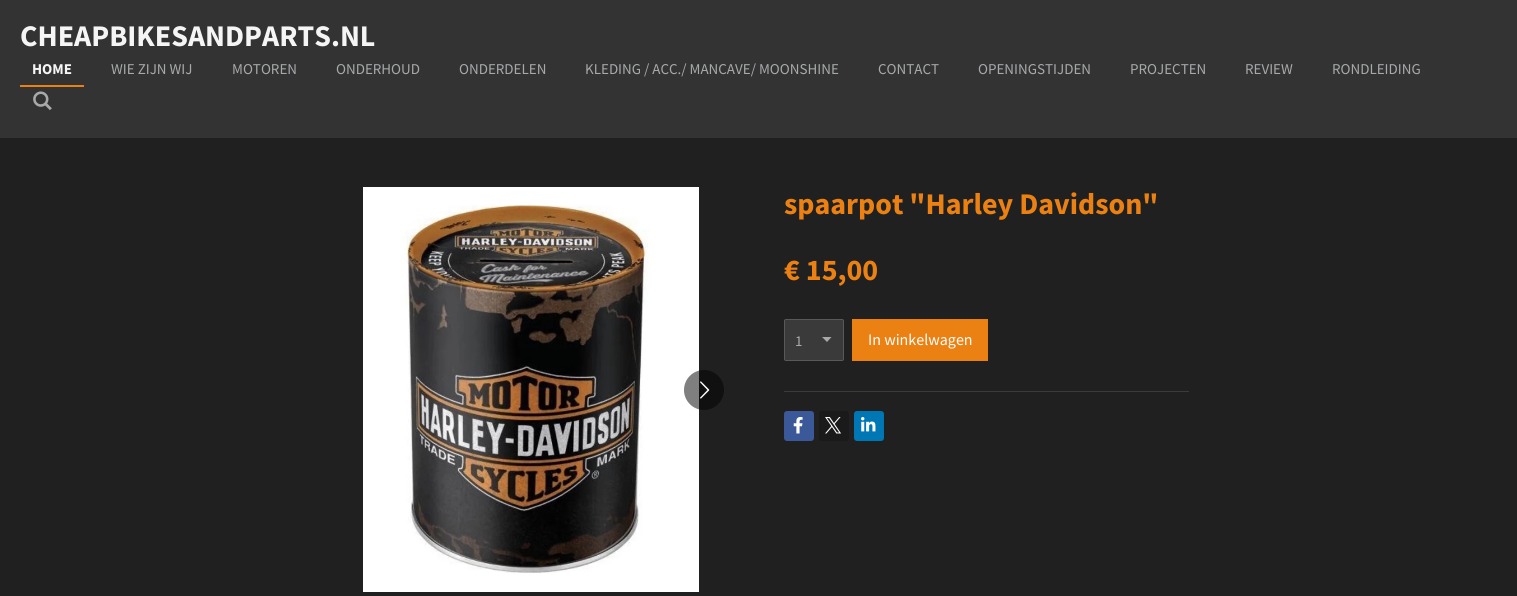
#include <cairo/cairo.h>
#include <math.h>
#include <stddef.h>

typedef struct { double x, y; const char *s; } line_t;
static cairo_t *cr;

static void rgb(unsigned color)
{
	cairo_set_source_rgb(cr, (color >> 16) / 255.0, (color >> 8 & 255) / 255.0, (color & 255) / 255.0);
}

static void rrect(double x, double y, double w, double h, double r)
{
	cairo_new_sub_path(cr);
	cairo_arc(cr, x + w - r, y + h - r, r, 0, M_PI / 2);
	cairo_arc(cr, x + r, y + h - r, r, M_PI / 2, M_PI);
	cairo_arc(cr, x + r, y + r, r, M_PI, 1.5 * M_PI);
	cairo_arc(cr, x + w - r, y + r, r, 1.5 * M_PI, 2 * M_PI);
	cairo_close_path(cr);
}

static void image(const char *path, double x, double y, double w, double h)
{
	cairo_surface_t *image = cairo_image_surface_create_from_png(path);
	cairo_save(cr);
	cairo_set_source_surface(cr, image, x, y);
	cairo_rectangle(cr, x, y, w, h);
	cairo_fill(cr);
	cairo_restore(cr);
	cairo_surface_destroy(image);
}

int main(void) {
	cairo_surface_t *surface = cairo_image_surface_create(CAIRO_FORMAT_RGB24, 1517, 596);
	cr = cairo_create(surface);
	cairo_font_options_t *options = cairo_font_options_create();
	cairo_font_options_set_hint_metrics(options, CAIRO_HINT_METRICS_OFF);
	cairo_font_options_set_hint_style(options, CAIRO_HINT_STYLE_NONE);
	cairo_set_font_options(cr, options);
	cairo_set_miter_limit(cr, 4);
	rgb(0x333333);
	cairo_paint(cr);
	rgb(0xeb8113);
	cairo_rectangle(cr, 20, 85, 64, 2);
	cairo_fill(cr);
	image("img/1.png", 33, 91, 19, 20);
	rgb(0x202020);
	cairo_rectangle(cr, 0, 138, 1517, 458);
	cairo_fill(cr);
	image("img/2.png", 363, 187, 336, 405);
	cairo_set_source_rgba(cr, 0, 0, 0, 0.5);
	cairo_arc(cr, 704, 390, 20, 0, 2 * M_PI);
	cairo_fill(cr);
	image("img/3.png", 700, 381, 10, 18);
	rgb(0x3a3a3a);
	rrect(784, 319, 60, 42, 2);
	cairo_fill(cr);
	rgb(0xa7a9ab);
	cairo_new_path(cr);
	cairo_move_to(cr, 827, 342);
	cairo_line_to(cr, 822, 337);
	cairo_line_to(cr, 831.5, 337);
	cairo_close_path(cr);
	cairo_fill(cr);
	rrect(784.5, 319.5, 59, 41, 1.5);
	cairo_set_source_rgba(cr, 0.475, 0.475, 0.475, 0.5);
	cairo_set_line_width(cr, 1);
	cairo_stroke(cr);
	rgb(0xeb8113);
	cairo_rectangle(cr, 852, 319, 136, 42);
	cairo_fill(cr);
	rgb(0x3b3b3c);
	cairo_rectangle(cr, 784, 391, 405, 1);
	cairo_fill(cr);
	rgb(0x3b5998);
	rrect(784, 411, 30, 30, 3);
	cairo_fill(cr);
	image("img/4.png", 793, 417, 10, 17);
	rgb(0x1a1a1a);
	rrect(819, 411, 30, 30, 3);
	cairo_fill(cr);
	image("img/5.png", 825, 417, 16, 17);
	rgb(0x0077b5);
	rrect(854, 411, 30, 30, 3);
	cairo_fill(cr);
	image("img/6.png", 861, 417, 15, 15);
	cairo_select_font_face(cr, "Source Sans Pro", CAIRO_FONT_SLANT_NORMAL, CAIRO_FONT_WEIGHT_BOLD);
	cairo_set_font_size(cr, 30);
	rgb(0xf5f5f6);
	cairo_move_to(cr, 20, 46);
	cairo_show_text(cr, "CHEAPBIKESANDPARTS.NL");
	cairo_set_font_size(cr, 15);
	cairo_move_to(cr, 32, 74);
	cairo_show_text(cr, "HOME");
	cairo_select_font_face(cr, "Source Sans Pro", CAIRO_FONT_SLANT_NORMAL, CAIRO_FONT_WEIGHT_NORMAL);
	rgb(0xa7a9ab);
	{
		static const line_t items[] = {
			{111, 74, "WIE ZIJN WIJ"},
			{232, 74, "MOTOREN"},
			{336, 74, "ONDERHOUD"},
			{459, 74, "ONDERDELEN"},
			{585, 74, "KLEDING / ACC./ MANCAVE/ MOONSHINE"},
			{878, 74, "CONTACT"},
			{978, 74, "OPENINGSTIJDEN"},
			{1130, 74, "PROJECTEN"},
			{1245, 74, "REVIEW"},
			{1332, 74, "RONDLEIDING"},
		};
		for (size_t i = 0; i < sizeof items / sizeof *items; i++) {
			cairo_move_to(cr, items[i].x, items[i].y);
			cairo_show_text(cr, items[i].s);
		}
	}
	cairo_select_font_face(cr, "Source Sans Pro", CAIRO_FONT_SLANT_NORMAL, CAIRO_FONT_WEIGHT_BOLD);
	cairo_set_font_size(cr, 30);
	rgb(0xeb8113);
	cairo_move_to(cr, 784, 214);
	cairo_show_text(cr, "spaarpot \"Harley Davidson\"");
	cairo_move_to(cr, 784, 280);
	cairo_show_text(cr, "€ 15,00");
	cairo_select_font_face(cr, "Source Sans Pro", CAIRO_FONT_SLANT_NORMAL, CAIRO_FONT_WEIGHT_NORMAL);
	cairo_set_font_size(cr, 15);
	rgb(0xa7a9ab);
	cairo_move_to(cr, 795, 346);
	cairo_show_text(cr, "1");
	cairo_set_font_size(cr, 16);
	rgb(0xffffff);
	cairo_move_to(cr, 868, 345);
	cairo_show_text(cr, "In winkelwagen");
	cairo_surface_write_to_png(surface, "page.png");
	cairo_font_options_destroy(options);
	cairo_destroy(cr);
	cairo_surface_destroy(surface);
	return 0;
}
